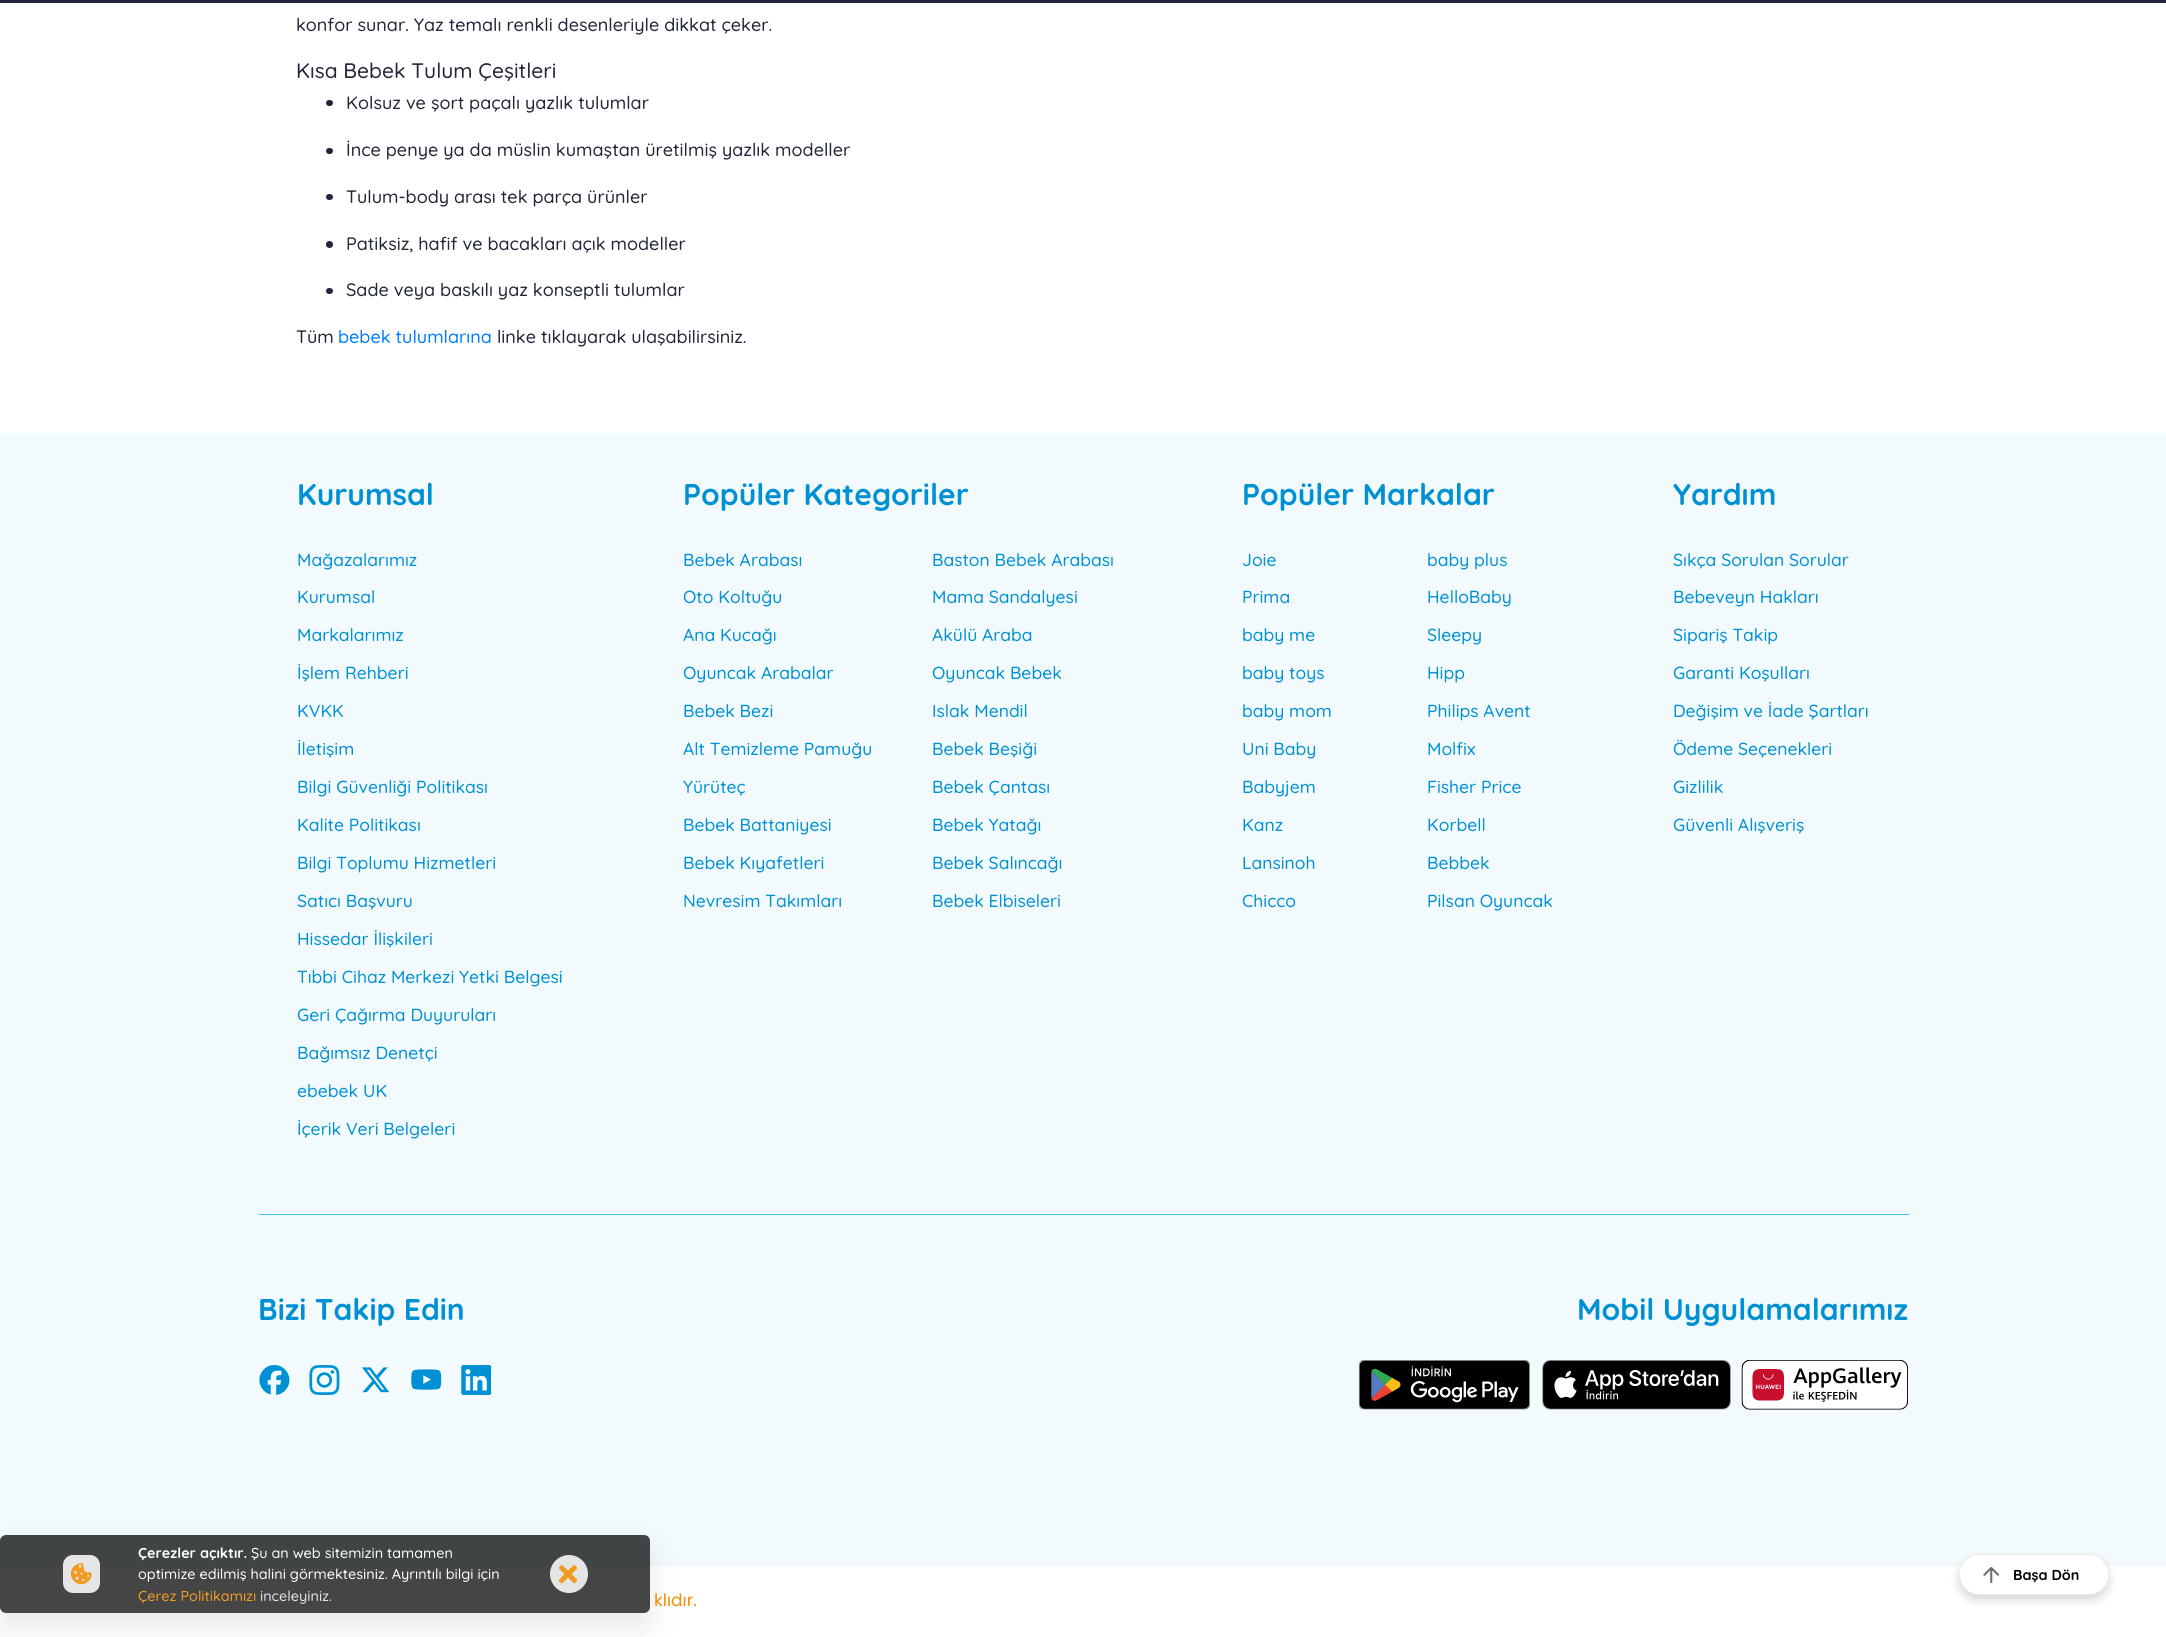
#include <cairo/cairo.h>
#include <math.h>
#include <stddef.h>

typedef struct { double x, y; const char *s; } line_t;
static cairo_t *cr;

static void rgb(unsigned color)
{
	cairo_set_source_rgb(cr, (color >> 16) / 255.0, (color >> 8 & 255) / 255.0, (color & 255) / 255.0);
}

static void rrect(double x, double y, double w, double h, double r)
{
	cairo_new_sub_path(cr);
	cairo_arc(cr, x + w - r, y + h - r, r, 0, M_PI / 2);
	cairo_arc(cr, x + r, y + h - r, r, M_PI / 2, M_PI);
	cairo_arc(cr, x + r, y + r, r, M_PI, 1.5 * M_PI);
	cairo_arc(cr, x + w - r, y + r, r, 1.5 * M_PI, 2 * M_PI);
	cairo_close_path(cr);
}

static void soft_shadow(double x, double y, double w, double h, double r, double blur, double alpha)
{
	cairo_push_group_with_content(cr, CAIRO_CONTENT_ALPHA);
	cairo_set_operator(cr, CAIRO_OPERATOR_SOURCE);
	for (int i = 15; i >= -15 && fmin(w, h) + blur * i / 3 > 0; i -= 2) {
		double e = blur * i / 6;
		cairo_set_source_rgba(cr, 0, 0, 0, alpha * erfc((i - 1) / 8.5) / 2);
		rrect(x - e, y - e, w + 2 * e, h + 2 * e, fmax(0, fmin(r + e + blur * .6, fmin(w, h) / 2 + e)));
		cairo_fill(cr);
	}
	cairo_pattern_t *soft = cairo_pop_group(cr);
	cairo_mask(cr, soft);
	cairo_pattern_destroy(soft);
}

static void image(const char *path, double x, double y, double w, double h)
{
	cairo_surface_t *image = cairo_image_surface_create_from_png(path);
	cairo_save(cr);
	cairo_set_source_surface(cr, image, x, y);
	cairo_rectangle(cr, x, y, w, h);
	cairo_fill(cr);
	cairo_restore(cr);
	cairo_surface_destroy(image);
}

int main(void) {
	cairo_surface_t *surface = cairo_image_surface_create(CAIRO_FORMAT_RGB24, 2166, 1637);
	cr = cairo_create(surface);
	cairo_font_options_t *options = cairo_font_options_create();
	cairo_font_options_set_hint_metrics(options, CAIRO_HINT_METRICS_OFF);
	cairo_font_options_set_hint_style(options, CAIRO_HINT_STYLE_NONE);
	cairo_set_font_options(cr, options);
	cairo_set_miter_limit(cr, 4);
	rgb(0xffffff);
	cairo_paint(cr);
	rgb(0x212738);
	cairo_rectangle(cr, 0, 0, 2166, 3);
	cairo_fill(cr);
	rrect(326, 100, 7, 6, 3);
	cairo_fill(cr);
	rrect(326, 148, 7, 6, 3);
	cairo_fill(cr);
	rrect(326, 194, 7, 6, 3);
	cairo_fill(cr);
	cairo_arc(cr, 329.5, 244.5, 3.5, 0, 2 * M_PI);
	cairo_fill(cr);
	rrect(326, 288, 7, 6, 3);
	cairo_fill(cr);
	rgb(0xf2fafe);
	cairo_rectangle(cr, 0, 433, 2166, 1133);
	cairo_fill(cr);
	rgb(0x40c2ff);
	cairo_rectangle(cr, 259, 1214, 1650, 1);
	cairo_fill(cr);
	image("img/1.png", 259, 1365, 31, 30);
	image("img/2.png", 309, 1365, 31, 30);
	image("img/3.png", 362, 1367, 28, 26);
	image("img/4.png", 411, 1369, 31, 21);
	image("img/5.png", 461, 1365, 30, 30);
	image("img/6.png", 1358, 1360, 172, 50);
	image("img/7.png", 1542, 1360, 189, 50);
	image("img/8.png", 1741, 1360, 167, 50);
	cairo_save(cr);
	cairo_set_fill_rule(cr, CAIRO_FILL_RULE_EVEN_ODD);
	cairo_new_path(cr);
	cairo_move_to(cr, 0, 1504);
	cairo_line_to(cr, 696, 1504);
	cairo_line_to(cr, 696, 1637);
	cairo_line_to(cr, 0, 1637);
	cairo_close_path(cr);
	cairo_move_to(cr, 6, 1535);
	cairo_line_to(cr, 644, 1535);
	cairo_curve_to(cr, 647.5, 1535, 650, 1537.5, 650, 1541);
	cairo_line_to(cr, 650, 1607);
	cairo_curve_to(cr, 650, 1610.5, 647.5, 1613, 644, 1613);
	cairo_line_to(cr, 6, 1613);
	cairo_curve_to(cr, 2.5, 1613, 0, 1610.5, 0, 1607);
	cairo_line_to(cr, 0, 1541);
	cairo_curve_to(cr, 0, 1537.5, 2.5, 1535, 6, 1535);
	cairo_close_path(cr);
	cairo_clip(cr);
	rgb(0x000000);
	soft_shadow(0, 1550, 650, 78, 6, 15, 0.09);
	cairo_restore(cr);
	cairo_set_source_rgba(cr, 0, 0, 0, 0.73);
	rrect(0, 1535, 650, 78, 6);
	cairo_fill(cr);
	image("img/9.png", 63, 1555, 37, 38);
	cairo_set_source_rgba(cr, 1, 1, 1, 0.86);
	cairo_arc(cr, 569, 1574, 19, 0, 2 * M_PI);
	cairo_fill(cr);
	image("img/10.png", 558, 1565, 20, 19);
	rgb(0x000000);
	soft_shadow(1959, 1559, 150, 41, 20, 5, 0.16);
	rgb(0xffffff);
	rrect(1959, 1554, 150, 41, 20);
	cairo_fill(cr);
	image("img/11.png", 1983, 1566, 17, 18);
	rrect(1959.5, 1554.5, 149, 40, 19.5);
	cairo_set_source_rgba(cr, 0, 0, 0, 0.08);
	cairo_set_line_width(cr, 1);
	cairo_stroke(cr);
	cairo_select_font_face(cr, "Quicksand Medium", CAIRO_FONT_SLANT_NORMAL, CAIRO_FONT_WEIGHT_NORMAL);
	cairo_set_font_size(cr, 18);
	rgb(0x212738);
	cairo_move_to(cr, 296, 31);
	cairo_show_text(cr, "konfor sunar. Yaz temalı renkli desenleriyle dikkat çeker.");
	cairo_set_font_size(cr, 21);
	cairo_move_to(cr, 296, 78);
	cairo_show_text(cr, "Kısa Bebek Tulum Çeşitleri");
	cairo_set_font_size(cr, 18);
	{
		static const line_t items[] = {
			{346, 109, "Kolsuz ve şort paçalı yazlık tulumlar"},
			{346, 156, "İnce penye ya da müslin kumaştan üretilmiş yazlık modeller"},
			{346, 203, "Tulum-body arası tek parça ürünler"},
			{346, 250, "Patiksiz, hafif ve bacakları açık modeller"},
			{346, 296, "Sade veya baskılı yaz konseptli tulumlar"},
			{296, 343, "Tüm"},
		};
		for (size_t i = 0; i < sizeof items / sizeof *items; i++) {
			cairo_move_to(cr, items[i].x, items[i].y);
			cairo_show_text(cr, items[i].s);
		}
	}
	rgb(0x007bff);
	cairo_move_to(cr, 338, 343);
	cairo_show_text(cr, "bebek tulumlarına");
	rgb(0x212738);
	cairo_move_to(cr, 497, 343);
	cairo_show_text(cr, "linke tıklayarak ulaşabilirsiniz.");
	cairo_select_font_face(cr, "Quicksand", CAIRO_FONT_SLANT_NORMAL, CAIRO_FONT_WEIGHT_BOLD);
	cairo_set_font_size(cr, 30);
	rgb(0x0091d5);
	cairo_move_to(cr, 297, 505);
	cairo_show_text(cr, "Kurumsal");
	cairo_select_font_face(cr, "Quicksand Medium", CAIRO_FONT_SLANT_NORMAL, CAIRO_FONT_WEIGHT_NORMAL);
	cairo_set_font_size(cr, 17.5);
	{
		static const line_t items[] = {
			{297, 566, "Mağazalarımız"},
			{297, 603, "Kurumsal"},
			{297, 641, "Markalarımız"},
			{297, 679, "İşlem Rehberi"},
			{297, 717, "KVKK"},
			{297, 755, "İletişim"},
			{297, 793, "Bilgi Güvenliği Politikası"},
			{297, 831, "Kalite Politikası"},
			{297, 869, "Bilgi Toplumu Hizmetleri"},
			{297, 907, "Satıcı Başvuru"},
			{297, 945, "Hissedar İlişkileri"},
			{297, 983, "Tıbbi Cihaz Merkezi Yetki Belgesi"},
			{297, 1021, "Geri Çağırma Duyuruları"},
			{297, 1059, "Bağımsız Denetçi"},
			{297, 1097, "ebebek UK"},
			{297, 1135, "İçerik Veri Belgeleri"},
		};
		for (size_t i = 0; i < sizeof items / sizeof *items; i++) {
			cairo_move_to(cr, items[i].x, items[i].y);
			cairo_show_text(cr, items[i].s);
		}
	}
	cairo_select_font_face(cr, "Quicksand", CAIRO_FONT_SLANT_NORMAL, CAIRO_FONT_WEIGHT_BOLD);
	cairo_set_font_size(cr, 30);
	cairo_move_to(cr, 683, 505);
	cairo_show_text(cr, "Popüler Kategoriler");
	cairo_select_font_face(cr, "Quicksand Medium", CAIRO_FONT_SLANT_NORMAL, CAIRO_FONT_WEIGHT_NORMAL);
	cairo_set_font_size(cr, 17.5);
	{
		static const line_t items[] = {
			{683, 566, "Bebek Arabası"},
			{932, 566, "Baston Bebek Arabası"},
			{683, 603, "Oto Koltuğu"},
			{932, 603, "Mama Sandalyesi"},
			{683, 641, "Ana Kucağı"},
			{932, 641, "Akülü Araba"},
			{683, 679, "Oyuncak Arabalar"},
			{932, 679, "Oyuncak Bebek"},
			{683, 717, "Bebek Bezi"},
			{932, 717, "Islak Mendil"},
			{683, 755, "Alt Temizleme Pamuğu"},
			{932, 755, "Bebek Beşiği"},
			{683, 793, "Yürüteç"},
			{932, 793, "Bebek Çantası"},
			{683, 831, "Bebek Battaniyesi"},
			{932, 831, "Bebek Yatağı"},
			{683, 869, "Bebek Kıyafetleri"},
			{932, 869, "Bebek Salıncağı"},
			{683, 907, "Nevresim Takımları"},
			{932, 907, "Bebek Elbiseleri"},
		};
		for (size_t i = 0; i < sizeof items / sizeof *items; i++) {
			cairo_move_to(cr, items[i].x, items[i].y);
			cairo_show_text(cr, items[i].s);
		}
	}
	cairo_select_font_face(cr, "Quicksand", CAIRO_FONT_SLANT_NORMAL, CAIRO_FONT_WEIGHT_BOLD);
	cairo_set_font_size(cr, 30);
	cairo_move_to(cr, 1242, 505);
	cairo_show_text(cr, "Popüler Markalar");
	cairo_select_font_face(cr, "Quicksand Medium", CAIRO_FONT_SLANT_NORMAL, CAIRO_FONT_WEIGHT_NORMAL);
	cairo_set_font_size(cr, 17.5);
	{
		static const line_t items[] = {
			{1242, 566, "Joie"},
			{1427, 566, "baby plus"},
			{1242, 603, "Prima"},
			{1427, 603, "HelloBaby"},
			{1242, 641, "baby me"},
			{1427, 641, "Sleepy"},
			{1242, 679, "baby toys"},
			{1427, 679, "Hipp"},
			{1242, 717, "baby mom"},
			{1427, 717, "Philips Avent"},
			{1242, 755, "Uni Baby"},
			{1427, 755, "Molfix"},
			{1242, 793, "Babyjem"},
			{1427, 793, "Fisher Price"},
			{1242, 831, "Kanz"},
			{1427, 831, "Korbell"},
			{1242, 869, "Lansinoh"},
			{1427, 869, "Bebbek"},
			{1242, 907, "Chicco"},
			{1427, 907, "Pilsan Oyuncak"},
		};
		for (size_t i = 0; i < sizeof items / sizeof *items; i++) {
			cairo_move_to(cr, items[i].x, items[i].y);
			cairo_show_text(cr, items[i].s);
		}
	}
	cairo_select_font_face(cr, "Quicksand", CAIRO_FONT_SLANT_NORMAL, CAIRO_FONT_WEIGHT_BOLD);
	cairo_set_font_size(cr, 30);
	cairo_move_to(cr, 1673, 505);
	cairo_show_text(cr, "Yardım");
	cairo_select_font_face(cr, "Quicksand Medium", CAIRO_FONT_SLANT_NORMAL, CAIRO_FONT_WEIGHT_NORMAL);
	cairo_set_font_size(cr, 17.5);
	{
		static const line_t items[] = {
			{1673, 566, "Sıkça Sorulan Sorular"},
			{1673, 603, "Bebeveyn Hakları"},
			{1673, 641, "Sipariş Takip"},
			{1673, 679, "Garanti Koşulları"},
			{1673, 717, "Değişim ve İade Şartları"},
			{1673, 755, "Ödeme Seçenekleri"},
			{1673, 793, "Gizlilik"},
			{1673, 831, "Güvenli Alışveriş"},
		};
		for (size_t i = 0; i < sizeof items / sizeof *items; i++) {
			cairo_move_to(cr, items[i].x, items[i].y);
			cairo_show_text(cr, items[i].s);
		}
	}
	cairo_select_font_face(cr, "Quicksand", CAIRO_FONT_SLANT_NORMAL, CAIRO_FONT_WEIGHT_BOLD);
	cairo_set_font_size(cr, 30);
	cairo_move_to(cr, 258, 1320);
	cairo_show_text(cr, "Bizi Takip Edin");
	cairo_move_to(cr, 1577, 1320);
	cairo_show_text(cr, "Mobil Uygulamalarımız");
	cairo_set_font_size(cr, 14.4);
	rgb(0xfdfeff);
	cairo_move_to(cr, 138, 1558);
	cairo_show_text(cr, "Çerezler açıktır.");
	cairo_select_font_face(cr, "Quicksand Medium", CAIRO_FONT_SLANT_NORMAL, CAIRO_FONT_WEIGHT_NORMAL);
	cairo_move_to(cr, 251, 1558);
	cairo_show_text(cr, "Şu an web sitemizin tamamen");
	cairo_move_to(cr, 138, 1579);
	cairo_show_text(cr, "optimize edilmiş halini görmektesiniz. Ayrıntılı bilgi için");
	rgb(0xf49e24);
	cairo_move_to(cr, 138, 1601);
	cairo_show_text(cr, "Çerez Politikamızı");
	rgb(0xe5e4e3);
	cairo_move_to(cr, 260, 1601);
	cairo_show_text(cr, "inceleyiniz.");
	cairo_select_font_face(cr, "Poppins", CAIRO_FONT_SLANT_NORMAL, CAIRO_FONT_WEIGHT_NORMAL);
	cairo_set_font_size(cr, 17);
	rgb(0xf28e00);
	cairo_move_to(cr, 654, 1606);
	cairo_show_text(cr, "klıdır.");
	cairo_select_font_face(cr, "Quicksand", CAIRO_FONT_SLANT_NORMAL, CAIRO_FONT_WEIGHT_BOLD);
	cairo_set_font_size(cr, 14.4);
	rgb(0x000000);
	cairo_move_to(cr, 2013, 1580);
	cairo_show_text(cr, "Başa Dön");
	cairo_surface_write_to_png(surface, "page.png");
	cairo_font_options_destroy(options);
	cairo_destroy(cr);
	cairo_surface_destroy(surface);
	return 0;
}
